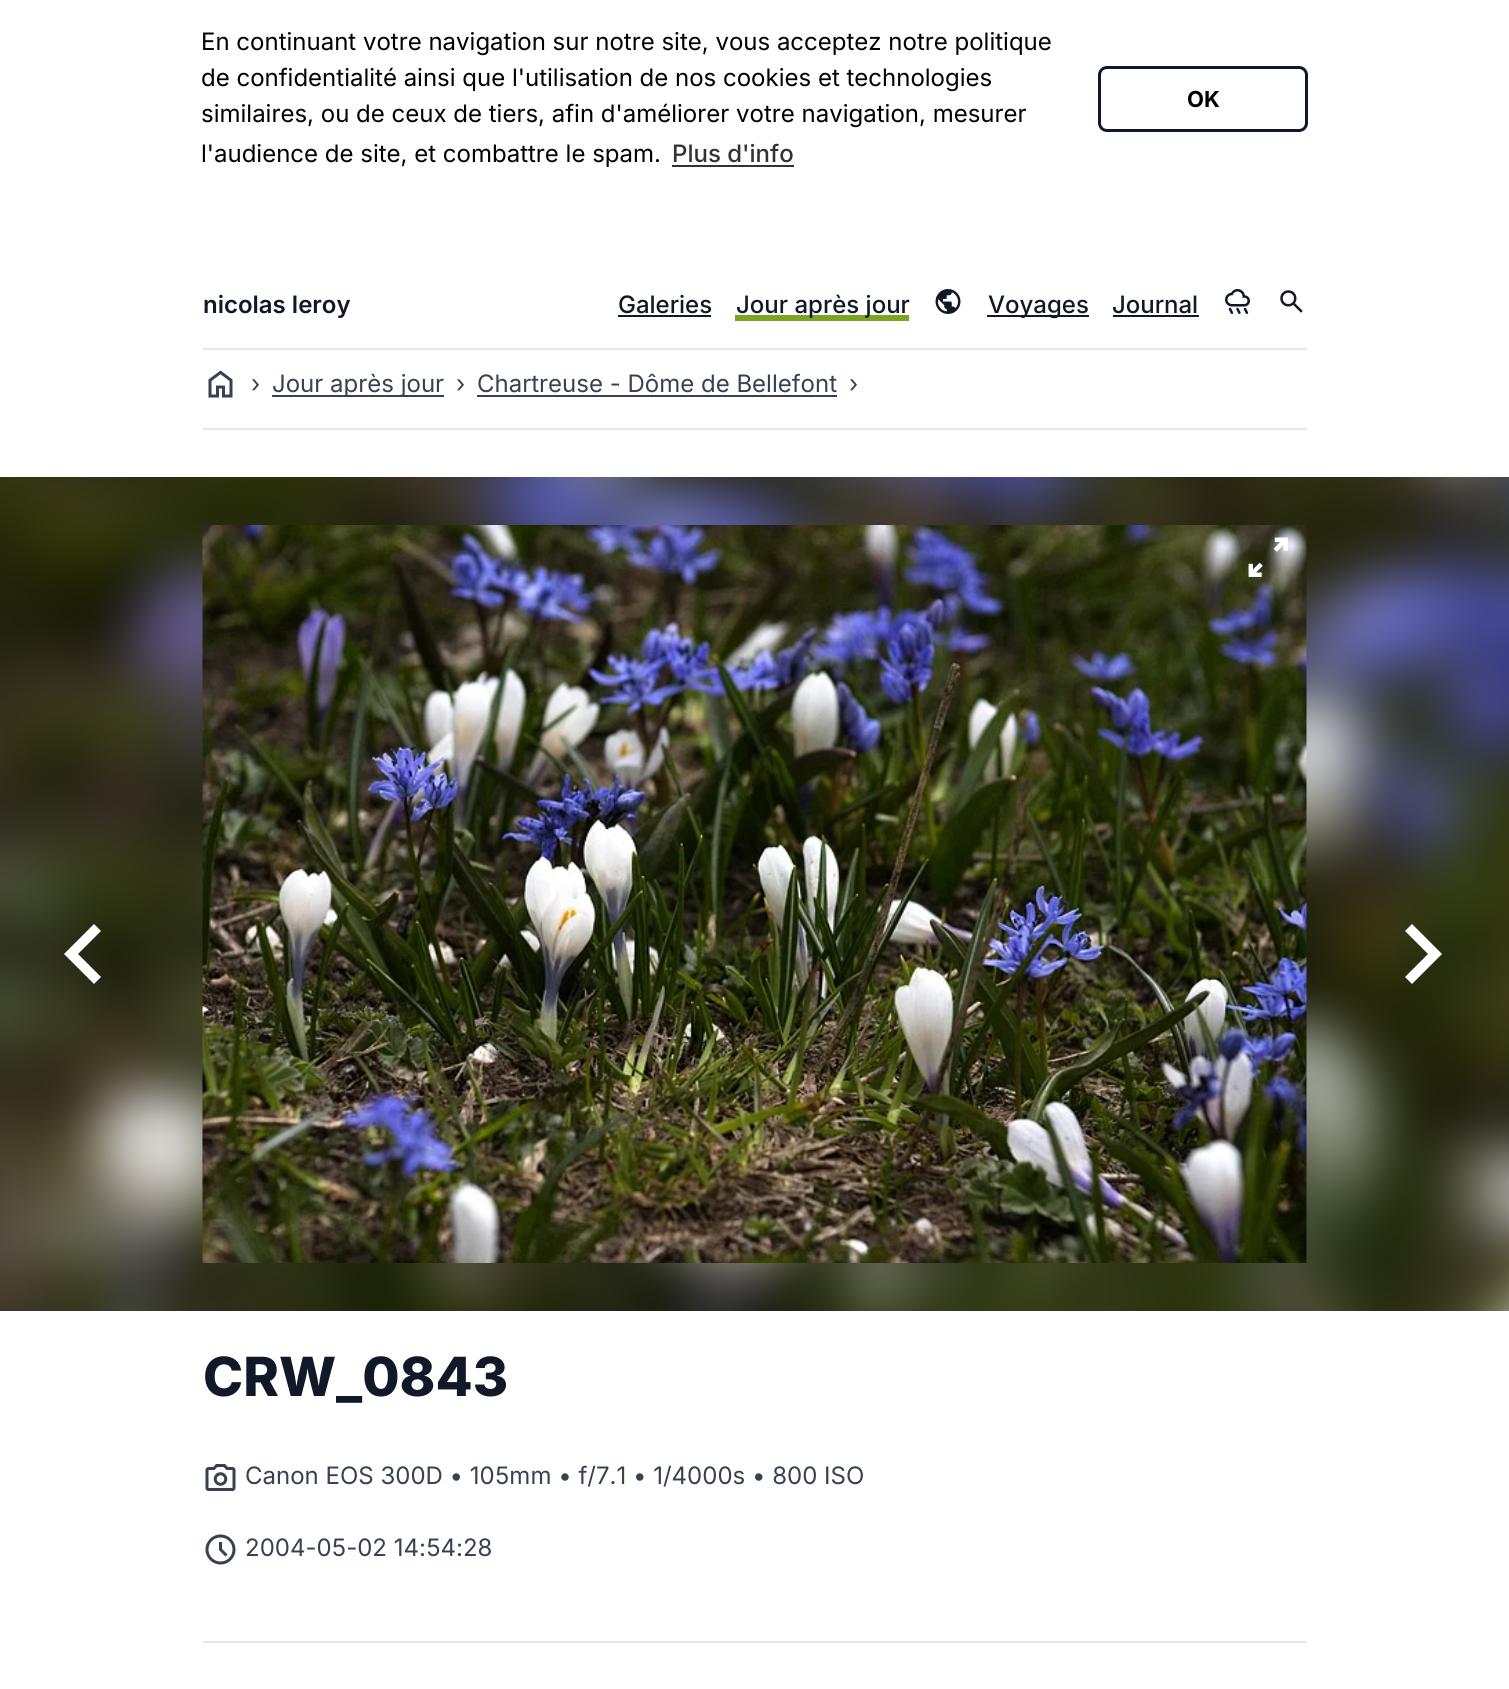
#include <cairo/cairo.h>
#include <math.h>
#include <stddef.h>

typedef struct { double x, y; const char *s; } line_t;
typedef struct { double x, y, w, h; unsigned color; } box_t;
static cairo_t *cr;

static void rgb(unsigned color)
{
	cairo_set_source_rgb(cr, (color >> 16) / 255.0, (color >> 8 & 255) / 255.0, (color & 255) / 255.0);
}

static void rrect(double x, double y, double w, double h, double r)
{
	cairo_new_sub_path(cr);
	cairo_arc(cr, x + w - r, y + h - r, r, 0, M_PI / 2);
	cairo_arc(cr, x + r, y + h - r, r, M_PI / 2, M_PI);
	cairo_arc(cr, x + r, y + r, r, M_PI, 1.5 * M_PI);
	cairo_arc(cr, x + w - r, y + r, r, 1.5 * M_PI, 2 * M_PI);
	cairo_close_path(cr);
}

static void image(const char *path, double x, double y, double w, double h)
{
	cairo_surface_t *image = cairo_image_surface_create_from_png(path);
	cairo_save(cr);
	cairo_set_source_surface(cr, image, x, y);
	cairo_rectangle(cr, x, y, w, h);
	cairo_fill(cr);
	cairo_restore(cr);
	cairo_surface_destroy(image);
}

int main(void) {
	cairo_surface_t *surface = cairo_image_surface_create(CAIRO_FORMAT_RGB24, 1509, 1689);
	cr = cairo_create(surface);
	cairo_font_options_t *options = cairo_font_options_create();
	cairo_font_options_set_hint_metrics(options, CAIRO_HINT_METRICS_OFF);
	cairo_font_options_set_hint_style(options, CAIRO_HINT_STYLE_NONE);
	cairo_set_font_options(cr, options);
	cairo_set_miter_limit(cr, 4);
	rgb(0xffffff);
	cairo_paint(cr);
	rgb(0x333333);
	cairo_rectangle(cr, 672, 165, 122, 2);
	cairo_fill(cr);
	rrect(1099.5, 67.5, 207, 63, 7.5);
	rgb(0x0f172a);
	cairo_set_line_width(cr, 3);
	cairo_stroke(cr);
	rgb(0x111827);
	cairo_rectangle(cr, 618, 315, 93, 2);
	cairo_fill(cr);
	rgb(0x7aa421);
	cairo_rectangle(cr, 735, 315, 174, 6);
	cairo_fill(cr);
	image("img/1.png", 935, 289, 26, 25);
	rgb(0x111827);
	cairo_rectangle(cr, 987, 315, 102, 2);
	cairo_fill(cr);
	cairo_rectangle(cr, 1113, 315, 86, 2);
	cairo_fill(cr);
	image("img/2.png", 1225, 289, 25, 25);
	image("img/3.png", 1280, 290, 23, 23);
	rgb(0xe5e7eb);
	cairo_rectangle(cr, 203, 348, 1104, 2);
	cairo_fill(cr);
	image("img/4.png", 208, 370, 25, 28);
	{
		static const box_t items[] = {
			{272, 395, 172, 2, 0x374151},
			{477, 395, 360, 2, 0x374151},
			{203, 428, 1104, 2, 0xe5e7eb},
		};
		for (size_t i = 0; i < sizeof items / sizeof *items; i++) {
			rgb(items[i].color);
			cairo_rectangle(cr, items[i].x, items[i].y, items[i].w, items[i].h);
			cairo_fill(cr);
		}
	}
	image("img/5.png", 0, 477, 1509, 834);
	rgb(0xffffff);
	cairo_new_path(cr);
	cairo_move_to(cr, 94, 984);
	cairo_line_to(cr, 64, 954);
	cairo_line_to(cr, 94, 924);
	cairo_line_to(cr, 101, 931);
	cairo_line_to(cr, 78, 954);
	cairo_line_to(cr, 101, 977);
	cairo_close_path(cr);
	cairo_fill(cr);
	image("img/6.png", 202, 525, 1105, 738);
	image("img/7.png", 1248, 537, 40, 40);
	cairo_new_path(cr);
	cairo_move_to(cr, 1428, 954);
	cairo_line_to(cr, 1405, 931);
	cairo_line_to(cr, 1412, 924);
	cairo_line_to(cr, 1442, 954);
	cairo_line_to(cr, 1412, 984);
	cairo_line_to(cr, 1405, 977);
	cairo_close_path(cr);
	cairo_fill(cr);
	image("img/8.png", 205, 1464, 31, 27);
	image("img/9.png", 205, 1534, 31, 31);
	rgb(0xe5e7eb);
	cairo_rectangle(cr, 203, 1641, 1104, 2);
	cairo_fill(cr);
	cairo_select_font_face(cr, "Inter", CAIRO_FONT_SLANT_NORMAL, CAIRO_FONT_WEIGHT_NORMAL);
	cairo_set_font_size(cr, 24);
	rgb(0x000000);
	{
		static const line_t items[] = {
			{201, 50, "En continuant votre navigation sur notre site, vous acceptez notre politique"},
			{201, 86, "de confidentialité ainsi que l'utilisation de nos cookies et technologies"},
			{201, 122, "similaires, ou de ceux de tiers, afin d'améliorer votre navigation, mesurer"},
			{201, 162, "l'audience de site, et combattre le spam."},
		};
		for (size_t i = 0; i < sizeof items / sizeof *items; i++) {
			cairo_move_to(cr, items[i].x, items[i].y);
			cairo_show_text(cr, items[i].s);
		}
	}
	cairo_select_font_face(cr, "Inter Medium", CAIRO_FONT_SLANT_NORMAL, CAIRO_FONT_WEIGHT_NORMAL);
	rgb(0x333333);
	cairo_move_to(cr, 672, 162);
	cairo_show_text(cr, "Plus d'info");
	cairo_select_font_face(cr, "Inter", CAIRO_FONT_SLANT_NORMAL, CAIRO_FONT_WEIGHT_BOLD);
	cairo_set_font_size(cr, 22);
	rgb(0x000000);
	cairo_move_to(cr, 1187, 107);
	cairo_show_text(cr, "OK");
	cairo_select_font_face(cr, "Inter SemiBold", CAIRO_FONT_SLANT_NORMAL, CAIRO_FONT_WEIGHT_NORMAL);
	cairo_set_font_size(cr, 24);
	rgb(0x111827);
	cairo_move_to(cr, 203, 313);
	cairo_show_text(cr, "nicolas leroy");
	cairo_select_font_face(cr, "Inter Medium", CAIRO_FONT_SLANT_NORMAL, CAIRO_FONT_WEIGHT_NORMAL);
	{
		static const line_t items[] = {
			{618, 313, "Galeries"},
			{736, 313, "Jour après jour"},
			{988, 313, "Voyages"},
			{1112, 313, "Journal"},
		};
		for (size_t i = 0; i < sizeof items / sizeof *items; i++) {
			cairo_move_to(cr, items[i].x, items[i].y);
			cairo_show_text(cr, items[i].s);
		}
	}
	cairo_select_font_face(cr, "Inter", CAIRO_FONT_SLANT_NORMAL, CAIRO_FONT_WEIGHT_NORMAL);
	rgb(0x374151);
	{
		static const line_t items[] = {
			{251, 392, "›"},
			{272, 392, "Jour après jour"},
			{456, 392, "›"},
			{477, 392, "Chartreuse - Dôme de Bellefont"},
			{849, 392, "›"},
		};
		for (size_t i = 0; i < sizeof items / sizeof *items; i++) {
			cairo_move_to(cr, items[i].x, items[i].y);
			cairo_show_text(cr, items[i].s);
		}
	}
	cairo_select_font_face(cr, "Inter ExtraBold", CAIRO_FONT_SLANT_NORMAL, CAIRO_FONT_WEIGHT_NORMAL);
	cairo_set_font_size(cr, 54);
	rgb(0x111827);
	cairo_move_to(cr, 203, 1396);
	cairo_show_text(cr, "CRW_0843");
	cairo_select_font_face(cr, "Inter", CAIRO_FONT_SLANT_NORMAL, CAIRO_FONT_WEIGHT_NORMAL);
	cairo_set_font_size(cr, 24);
	rgb(0x374151);
	cairo_move_to(cr, 245, 1484);
	cairo_show_text(cr, "Canon EOS 300D • 105mm • f/7.1 • 1/4000s • 800 ISO");
	cairo_move_to(cr, 245, 1556);
	cairo_show_text(cr, "2004-05-02 14:54:28");
	cairo_surface_write_to_png(surface, "page.png");
	cairo_font_options_destroy(options);
	cairo_destroy(cr);
	cairo_surface_destroy(surface);
	return 0;
}
